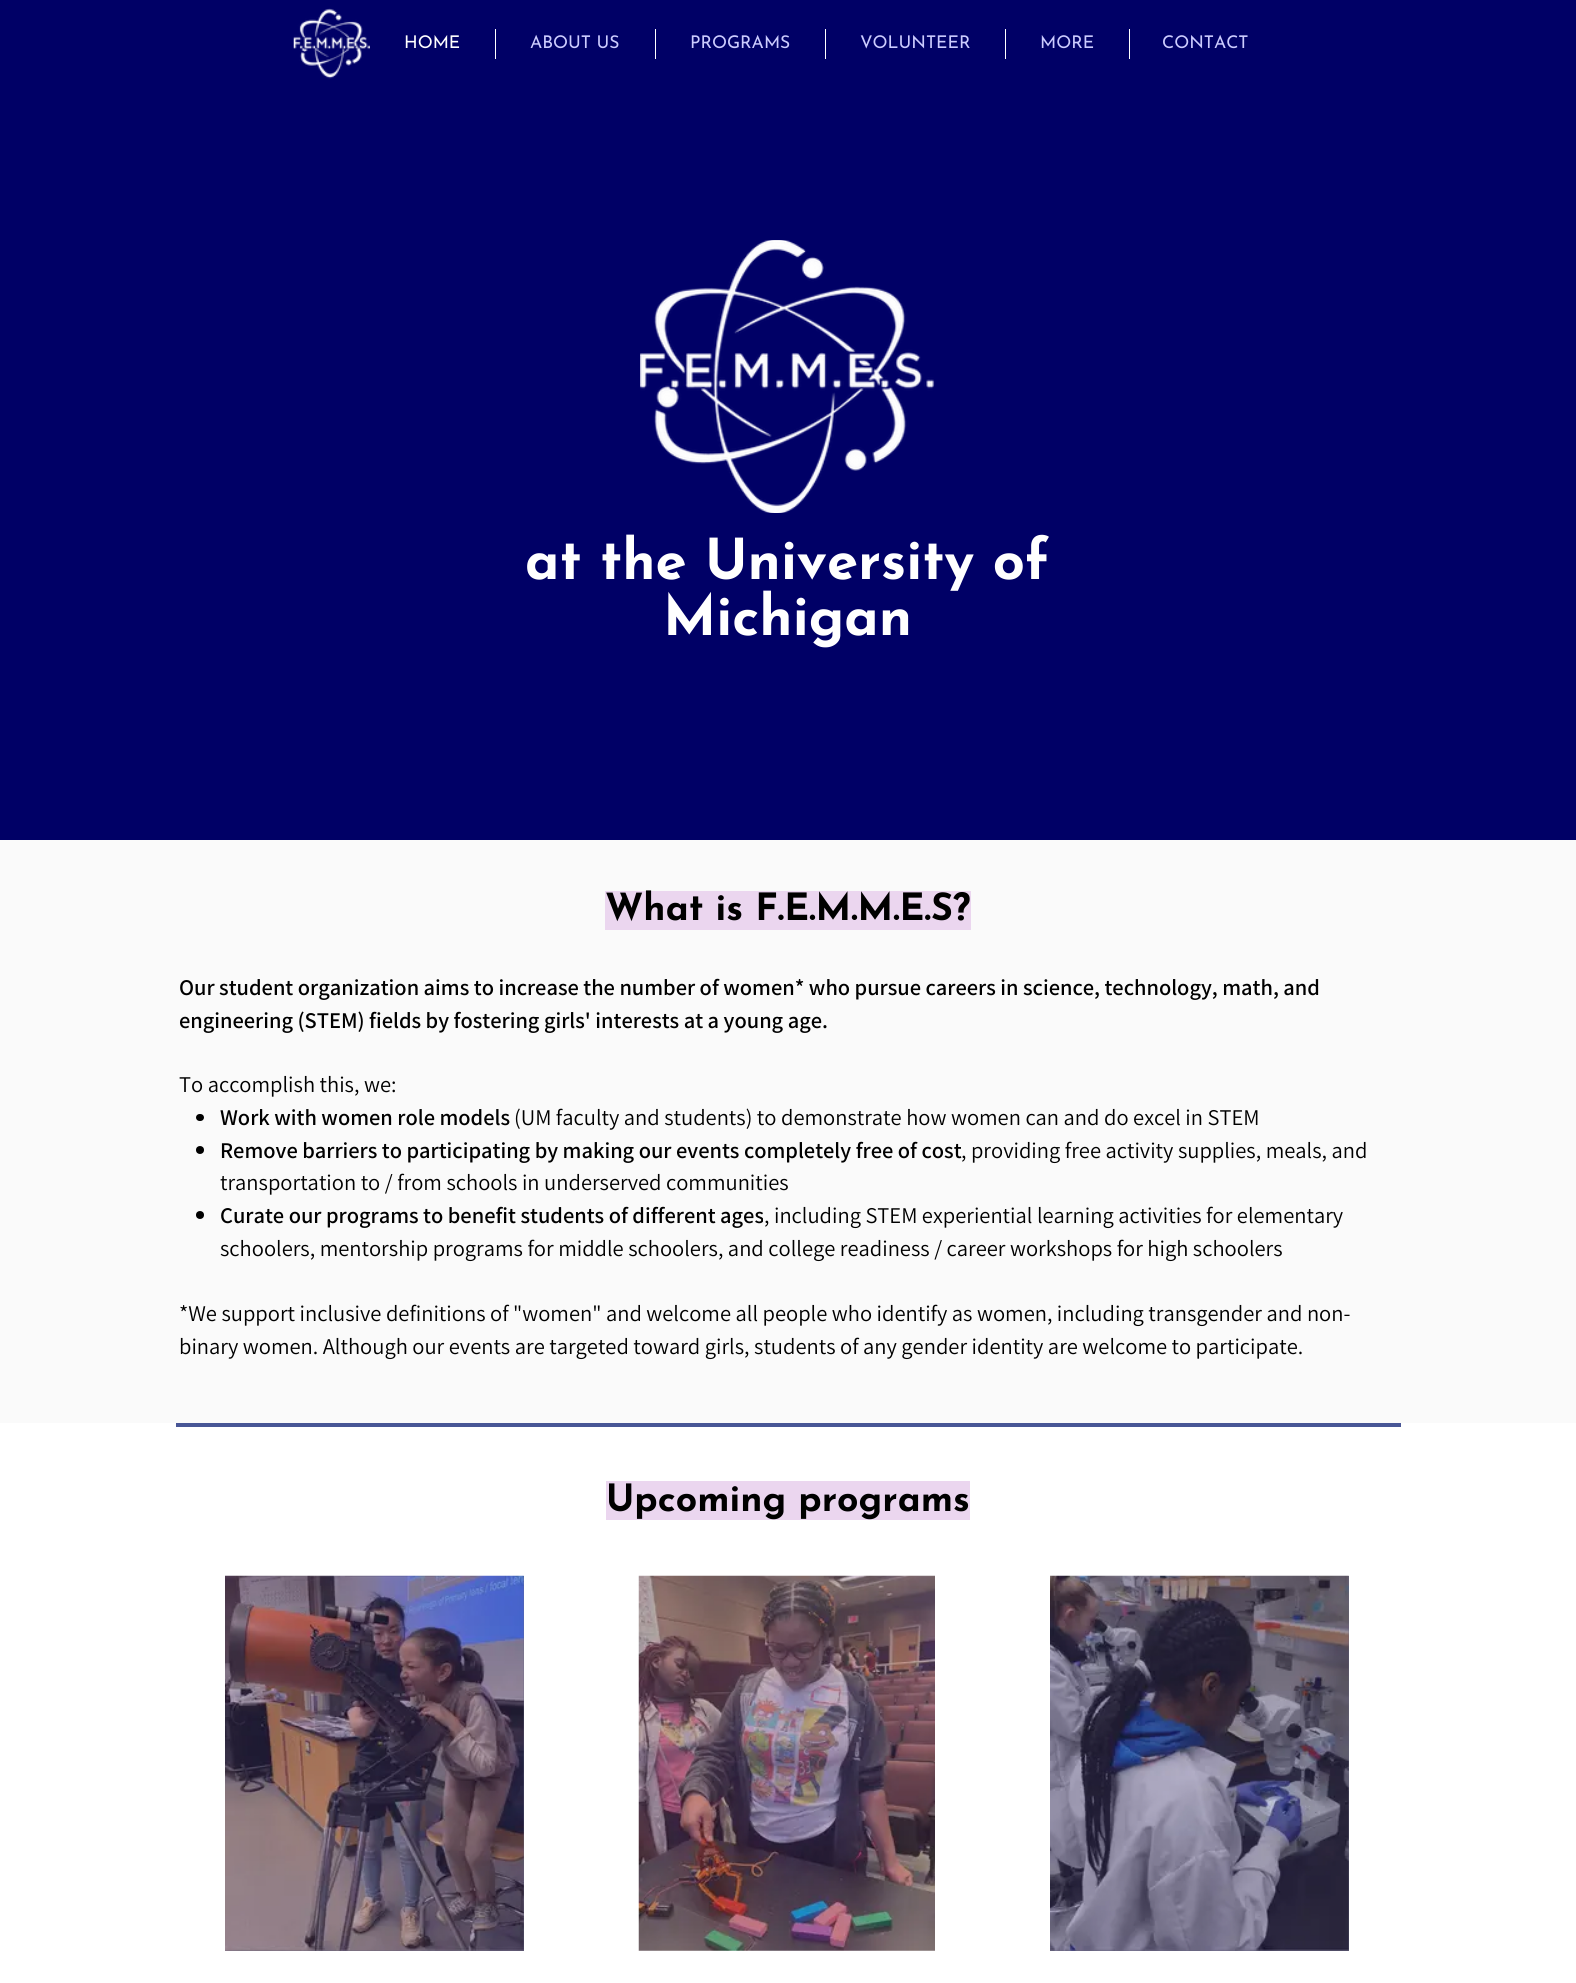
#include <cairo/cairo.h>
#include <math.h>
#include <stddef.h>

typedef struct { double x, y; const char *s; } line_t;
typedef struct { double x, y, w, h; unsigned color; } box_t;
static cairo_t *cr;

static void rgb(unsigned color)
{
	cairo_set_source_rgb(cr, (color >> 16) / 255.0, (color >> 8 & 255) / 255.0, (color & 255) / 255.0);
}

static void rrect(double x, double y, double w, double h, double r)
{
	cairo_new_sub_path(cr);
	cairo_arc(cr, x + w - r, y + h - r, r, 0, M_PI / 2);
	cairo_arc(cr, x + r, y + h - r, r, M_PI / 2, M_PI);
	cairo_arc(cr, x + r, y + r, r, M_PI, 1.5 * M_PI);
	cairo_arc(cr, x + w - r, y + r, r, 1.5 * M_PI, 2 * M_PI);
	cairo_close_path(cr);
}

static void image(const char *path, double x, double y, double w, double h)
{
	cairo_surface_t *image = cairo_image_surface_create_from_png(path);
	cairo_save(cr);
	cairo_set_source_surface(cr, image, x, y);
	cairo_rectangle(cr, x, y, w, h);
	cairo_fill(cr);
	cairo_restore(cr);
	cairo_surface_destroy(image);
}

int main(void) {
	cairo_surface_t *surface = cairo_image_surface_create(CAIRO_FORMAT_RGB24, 1576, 1983);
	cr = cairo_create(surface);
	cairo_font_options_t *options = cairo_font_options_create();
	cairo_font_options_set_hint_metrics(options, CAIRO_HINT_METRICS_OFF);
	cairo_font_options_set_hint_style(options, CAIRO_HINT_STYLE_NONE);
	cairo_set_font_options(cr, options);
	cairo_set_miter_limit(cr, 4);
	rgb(0x000066);
	cairo_paint(cr);
	image("img/1.png", 293, 8, 77, 71);
	{
		static const box_t items[] = {
			{495, 29, 1, 30, 0xffffff},
			{655, 29, 1, 30, 0xffffff},
			{825, 29, 1, 30, 0xffffff},
			{1005, 29, 1, 30, 0xffffff},
			{1129, 29, 1, 30, 0xffffff},
		};
		for (size_t i = 0; i < sizeof items / sizeof *items; i++) {
			rgb(items[i].color);
			cairo_rectangle(cr, items[i].x, items[i].y, items[i].w, items[i].h);
			cairo_fill(cr);
		}
	}
	image("img/2.png", 640, 240, 295, 273);
	rgb(0xfafafa);
	cairo_rectangle(cr, 0, 840, 1576, 583);
	cairo_fill(cr);
	rgb(0xebd6ef);
	cairo_rectangle(cr, 605, 891, 366, 39);
	cairo_fill(cr);
	rgb(0x000000);
	rrect(196, 1114, 8, 7, 3.5);
	cairo_fill(cr);
	cairo_arc(cr, 200, 1150, 4, 0, 2 * M_PI);
	cairo_fill(cr);
	cairo_arc(cr, 200, 1215, 4, 0, 2 * M_PI);
	cairo_fill(cr);
	{
		static const box_t items[] = {
			{0, 1423, 1576, 560, 0xffffff},
			{176, 1423, 1225, 4, 0x485696},
			{606, 1481, 364, 39, 0xebd6ef},
			{225, 1576, 299, 375, 0x666680},
		};
		for (size_t i = 0; i < sizeof items / sizeof *items; i++) {
			rgb(items[i].color);
			cairo_rectangle(cr, items[i].x, items[i].y, items[i].w, items[i].h);
			cairo_fill(cr);
		}
	}
	image("img/3.png", 225, 1575, 299, 376);
	image("img/4.png", 638, 1575, 297, 376);
	cairo_rectangle(cr, 1050, 1576, 299, 375);
	cairo_fill(cr);
	image("img/5.png", 1050, 1575, 299, 376);
	cairo_select_font_face(cr, "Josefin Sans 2 Thin", CAIRO_FONT_SLANT_NORMAL, CAIRO_FONT_WEIGHT_NORMAL);
	cairo_set_font_size(cr, 17.5);
	rgb(0xffffff);
	cairo_move_to(cr, 404, 48);
	cairo_show_text(cr, "HOME");
	rgb(0xccccff);
	{
		static const line_t items[] = {
			{530, 48, "ABOUT US"},
			{690, 48, "PROGRAMS"},
			{860, 48, "VOLUNTEER"},
			{1040, 48, "MORE"},
			{1162, 48, "CONTACT"},
		};
		for (size_t i = 0; i < sizeof items / sizeof *items; i++) {
			cairo_move_to(cr, items[i].x, items[i].y);
			cairo_show_text(cr, items[i].s);
		}
	}
	cairo_select_font_face(cr, "Josefin Sans Thin", CAIRO_FONT_SLANT_NORMAL, CAIRO_FONT_WEIGHT_NORMAL);
	cairo_set_font_size(cr, 56.25);
	rgb(0xffffff);
	cairo_move_to(cr, 525, 579);
	cairo_show_text(cr, "at the University of");
	cairo_move_to(cr, 663, 635);
	cairo_show_text(cr, "Michigan");
	cairo_set_font_size(cr, 37.5);
	rgb(0x000000);
	cairo_move_to(cr, 605, 920);
	cairo_show_text(cr, "What is F.E.M.M.E.S?");
	cairo_select_font_face(cr, "Assistant SemiBold", CAIRO_FONT_SLANT_NORMAL, CAIRO_FONT_WEIGHT_NORMAL);
	cairo_set_font_size(cr, 22.5);
	cairo_move_to(cr, 179, 995);
	cairo_show_text(cr, "Our student organization aims to increase the number of women* who pursue careers in science, technology, math, and");
	cairo_move_to(cr, 179, 1028);
	cairo_show_text(cr, "engineering (STEM) fields by fostering girls' interests at a young age.");
	cairo_select_font_face(cr, "Assistant", CAIRO_FONT_SLANT_NORMAL, CAIRO_FONT_WEIGHT_NORMAL);
	cairo_move_to(cr, 179, 1092);
	cairo_show_text(cr, "To accomplish this, we:");
	cairo_select_font_face(cr, "Assistant SemiBold", CAIRO_FONT_SLANT_NORMAL, CAIRO_FONT_WEIGHT_NORMAL);
	cairo_move_to(cr, 220, 1125);
	cairo_show_text(cr, "Work with women role models");
	cairo_select_font_face(cr, "Assistant", CAIRO_FONT_SLANT_NORMAL, CAIRO_FONT_WEIGHT_NORMAL);
	cairo_move_to(cr, 514, 1125);
	cairo_show_text(cr, "(UM faculty and students) to demonstrate how women can and do excel in STEM");
	cairo_select_font_face(cr, "Assistant SemiBold", CAIRO_FONT_SLANT_NORMAL, CAIRO_FONT_WEIGHT_NORMAL);
	cairo_move_to(cr, 220, 1158);
	cairo_show_text(cr, "Remove barriers to participating by making our events completely free of cost");
	cairo_select_font_face(cr, "Assistant", CAIRO_FONT_SLANT_NORMAL, CAIRO_FONT_WEIGHT_NORMAL);
	cairo_move_to(cr, 961, 1158);
	cairo_show_text(cr, ", providing free activity supplies, meals, and");
	cairo_move_to(cr, 220, 1190);
	cairo_show_text(cr, "transportation to / from schools in underserved communities");
	cairo_select_font_face(cr, "Assistant SemiBold", CAIRO_FONT_SLANT_NORMAL, CAIRO_FONT_WEIGHT_NORMAL);
	cairo_move_to(cr, 220, 1223);
	cairo_show_text(cr, "Curate our programs to benefit students of different ages");
	cairo_select_font_face(cr, "Assistant", CAIRO_FONT_SLANT_NORMAL, CAIRO_FONT_WEIGHT_NORMAL);
	{
		static const line_t items[] = {
			{764, 1223, ", including STEM experiential learning activities for elementary"},
			{220, 1256, "schoolers, mentorship programs for middle schoolers, and college readiness / career workshops for high schoolers"},
			{179, 1321, "*We support inclusive definitions of \"women\" and welcome all people who identify as women, including transgender and non-"},
			{179, 1354, "binary women. Although our events are targeted toward girls, students of any gender identity are welcome to participate."},
		};
		for (size_t i = 0; i < sizeof items / sizeof *items; i++) {
			cairo_move_to(cr, items[i].x, items[i].y);
			cairo_show_text(cr, items[i].s);
		}
	}
	cairo_select_font_face(cr, "Josefin Sans Thin", CAIRO_FONT_SLANT_NORMAL, CAIRO_FONT_WEIGHT_NORMAL);
	cairo_set_font_size(cr, 37.5);
	cairo_move_to(cr, 606, 1511);
	cairo_show_text(cr, "Upcoming programs");
	cairo_surface_write_to_png(surface, "page.png");
	cairo_font_options_destroy(options);
	cairo_destroy(cr);
	cairo_surface_destroy(surface);
	return 0;
}
